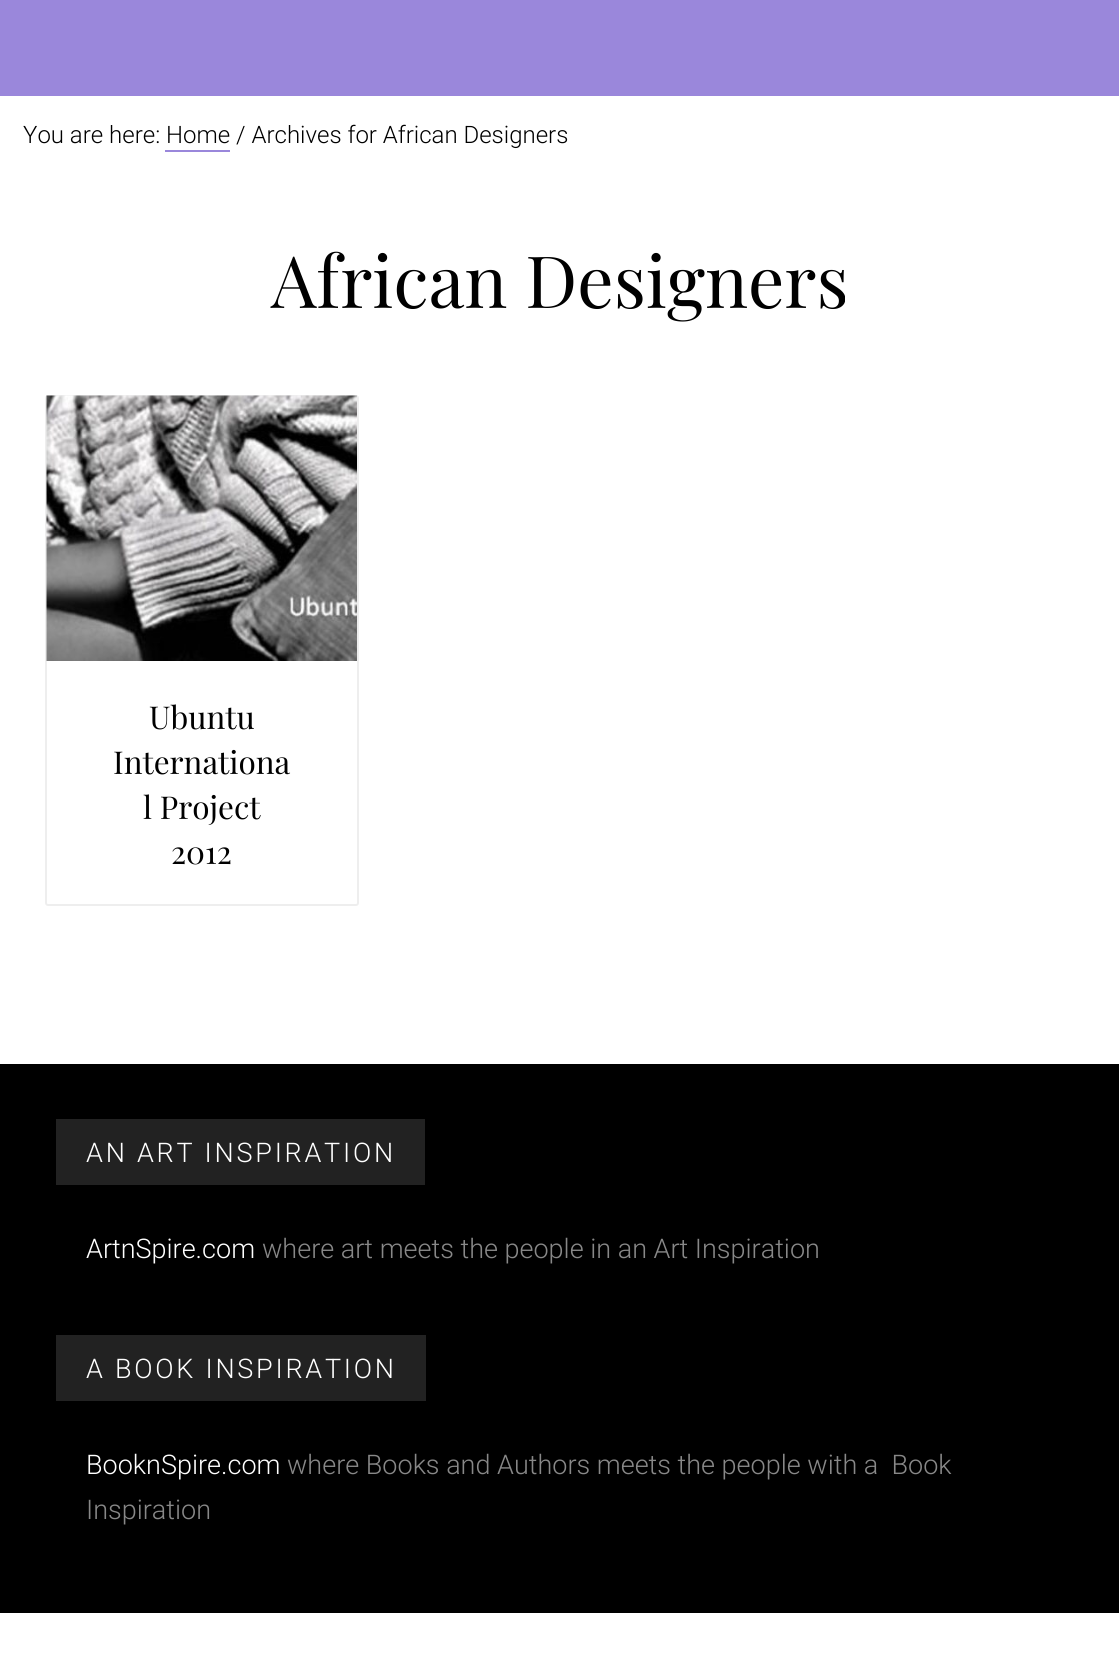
#include <cairo/cairo.h>
#include <math.h>
#include <stddef.h>

typedef struct { double x, y; const char *s; } line_t;
typedef struct { double x, y, w, h; unsigned color; } box_t;
static cairo_t *cr;

static void rgb(unsigned color)
{
	cairo_set_source_rgb(cr, (color >> 16) / 255.0, (color >> 8 & 255) / 255.0, (color & 255) / 255.0);
}

static void tracked(double x, double y, const char *s, double letter, double word)
{
	cairo_move_to(cr, x, y);
	while (*s) {
		char ch[5] = {0};
		int n = 0;
		do ch[n++] = *s++; while ((*s & 0xC0) == 0x80);
		cairo_show_text(cr, ch);
		cairo_rel_move_to(cr, letter + word * (*ch == ' '), 0);
	}
}

static void rrect(double x, double y, double w, double h, double r)
{
	cairo_new_sub_path(cr);
	cairo_arc(cr, x + w - r, y + h - r, r, 0, M_PI / 2);
	cairo_arc(cr, x + r, y + h - r, r, M_PI / 2, M_PI);
	cairo_arc(cr, x + r, y + r, r, M_PI, 1.5 * M_PI);
	cairo_arc(cr, x + w - r, y + r, r, 1.5 * M_PI, 2 * M_PI);
	cairo_close_path(cr);
}

static void image(const char *path, double x, double y, double w, double h)
{
	cairo_surface_t *image = cairo_image_surface_create_from_png(path);
	cairo_save(cr);
	cairo_set_source_surface(cr, image, x, y);
	cairo_rectangle(cr, x, y, w, h);
	cairo_fill(cr);
	cairo_restore(cr);
	cairo_surface_destroy(image);
}

int main(void) {
	cairo_surface_t *surface = cairo_image_surface_create(CAIRO_FORMAT_RGB24, 1119, 1663);
	cr = cairo_create(surface);
	cairo_font_options_t *options = cairo_font_options_create();
	cairo_font_options_set_hint_metrics(options, CAIRO_HINT_METRICS_OFF);
	cairo_font_options_set_hint_style(options, CAIRO_HINT_STYLE_NONE);
	cairo_set_font_options(cr, options);
	cairo_set_miter_limit(cr, 4);
	rgb(0xffffff);
	cairo_paint(cr);
	rgb(0x9a87db);
	cairo_rectangle(cr, 0, 0, 1119, 96);
	cairo_fill(cr);
	cairo_rectangle(cr, 165, 150, 65, 2);
	cairo_fill(cr);
	rrect(46, 396, 312, 509, 2);
	rgb(0xeeeeee);
	cairo_stroke(cr);
	image("img/1.png", 46, 395, 311, 266);
	{
		static const box_t items[] = {
			{0, 1064, 1119, 549, 0x000000},
			{56, 1119, 369, 66, 0x222222},
			{56, 1335, 370, 66, 0x222222},
		};
		for (size_t i = 0; i < sizeof items / sizeof *items; i++) {
			rgb(items[i].color);
			cairo_rectangle(cr, items[i].x, items[i].y, items[i].w, items[i].h);
			cairo_fill(cr);
		}
	}
	cairo_select_font_face(cr, "Roboto Light", CAIRO_FONT_SLANT_NORMAL, CAIRO_FONT_WEIGHT_NORMAL);
	cairo_set_font_size(cr, 24);
	rgb(0x000000);
	cairo_move_to(cr, 23, 143);
	cairo_show_text(cr, "You are here: Home / Archives for African Designers");
	cairo_select_font_face(cr, "Playfair Display", CAIRO_FONT_SLANT_NORMAL, CAIRO_FONT_WEIGHT_NORMAL);
	cairo_set_font_size(cr, 72);
	cairo_move_to(cr, 271, 308);
	cairo_show_text(cr, "African Designers");
	cairo_set_font_size(cr, 31.5);
	{
		static const line_t items[] = {
			{149, 729, "Ubuntu"},
			{113, 774, "Internationa"},
			{143, 819, "l Project"},
			{171, 864, "2012"},
		};
		for (size_t i = 0; i < sizeof items / sizeof *items; i++) {
			cairo_move_to(cr, items[i].x, items[i].y);
			cairo_show_text(cr, items[i].s);
		}
	}
	cairo_select_font_face(cr, "Roboto Light", CAIRO_FONT_SLANT_NORMAL, CAIRO_FONT_WEIGHT_NORMAL);
	cairo_set_font_size(cr, 27);
	rgb(0xffffff);
	tracked(86, 1162, "AN ART INSPIRATION", 2.75, 0);
	cairo_move_to(cr, 86, 1258);
	cairo_show_text(cr, "ArtnSpire.com");
	rgb(0x888888);
	cairo_move_to(cr, 262, 1258);
	cairo_show_text(cr, "where art meets the people in an Art Inspiration");
	rgb(0xffffff);
	tracked(86, 1378, "A BOOK INSPIRATION", 2.75, 0);
	cairo_move_to(cr, 86, 1474);
	cairo_show_text(cr, "BooknSpire.com");
	rgb(0x888888);
	cairo_move_to(cr, 287, 1474);
	cairo_show_text(cr, "where Books and Authors meets the people with a  Book");
	cairo_move_to(cr, 86, 1519);
	cairo_show_text(cr, "Inspiration");
	cairo_surface_write_to_png(surface, "page.png");
	cairo_font_options_destroy(options);
	cairo_destroy(cr);
	cairo_surface_destroy(surface);
	return 0;
}
